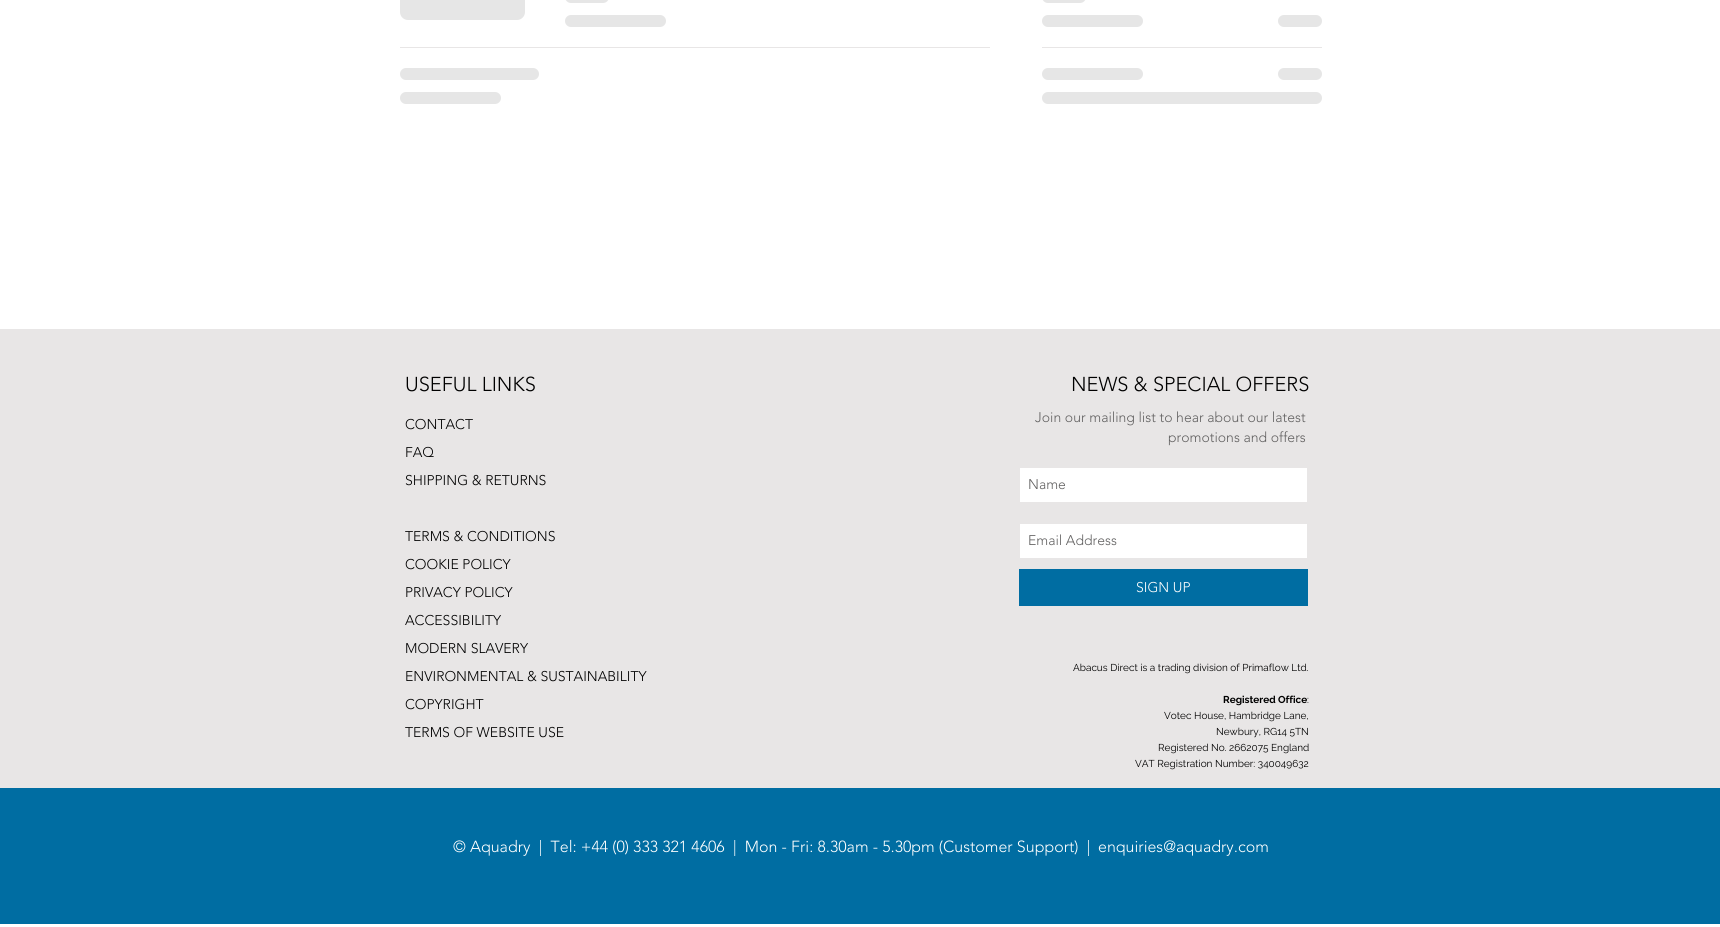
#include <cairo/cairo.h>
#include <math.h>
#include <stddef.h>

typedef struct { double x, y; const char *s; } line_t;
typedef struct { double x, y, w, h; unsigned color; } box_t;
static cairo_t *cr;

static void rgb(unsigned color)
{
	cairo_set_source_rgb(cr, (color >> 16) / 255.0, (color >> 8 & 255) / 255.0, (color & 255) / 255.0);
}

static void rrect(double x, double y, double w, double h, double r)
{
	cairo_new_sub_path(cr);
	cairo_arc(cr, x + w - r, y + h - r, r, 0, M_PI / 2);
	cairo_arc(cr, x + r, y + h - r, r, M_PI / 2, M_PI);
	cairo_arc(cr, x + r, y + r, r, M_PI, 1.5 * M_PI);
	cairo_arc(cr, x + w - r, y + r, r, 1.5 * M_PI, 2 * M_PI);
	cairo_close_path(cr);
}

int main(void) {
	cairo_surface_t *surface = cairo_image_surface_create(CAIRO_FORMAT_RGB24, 1720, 927);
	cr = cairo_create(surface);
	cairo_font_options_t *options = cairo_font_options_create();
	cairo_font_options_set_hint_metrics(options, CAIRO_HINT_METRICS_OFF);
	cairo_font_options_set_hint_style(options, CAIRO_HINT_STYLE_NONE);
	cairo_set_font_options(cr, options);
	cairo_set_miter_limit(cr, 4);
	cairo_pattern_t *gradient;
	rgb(0xffffff);
	cairo_paint(cr);
	gradient = cairo_pattern_create_linear(400, -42, 900, -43);
	cairo_pattern_add_color_stop_rgba(gradient, 0.25, 0.902, 0.902, 0.902, 1);
	cairo_pattern_add_color_stop_rgba(gradient, 0.37, 0.8, 0.8, 0.8, 1);
	cairo_pattern_add_color_stop_rgba(gradient, 0.63, 0.902, 0.902, 0.902, 1);
	cairo_set_source(cr, gradient);
	cairo_pattern_destroy(gradient);
	rrect(400, -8, 125, 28, 8);
	cairo_fill(cr);
	gradient = cairo_pattern_create_linear(565, -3, 741, -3);
	cairo_pattern_add_color_stop_rgba(gradient, 0.25, 0.902, 0.902, 0.902, 1);
	cairo_pattern_add_color_stop_rgba(gradient, 0.37, 0.8, 0.8, 0.8, 1);
	cairo_pattern_add_color_stop_rgba(gradient, 0.63, 0.902, 0.902, 0.902, 1);
	cairo_set_source(cr, gradient);
	cairo_pattern_destroy(gradient);
	rrect(565, -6, 44, 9, 6);
	cairo_fill(cr);
	gradient = cairo_pattern_create_linear(565, 21, 969, 21);
	cairo_pattern_add_color_stop_rgba(gradient, 0.25, 0.902, 0.902, 0.902, 1);
	cairo_pattern_add_color_stop_rgba(gradient, 0.37, 0.8, 0.8, 0.8, 1);
	cairo_pattern_add_color_stop_rgba(gradient, 0.63, 0.902, 0.902, 0.902, 1);
	cairo_set_source(cr, gradient);
	cairo_pattern_destroy(gradient);
	rrect(565, 15, 101, 12, 6);
	cairo_fill(cr);
	rgb(0xe8e6e6);
	cairo_rectangle(cr, 400, 47, 590, 1);
	cairo_fill(cr);
	gradient = cairo_pattern_create_linear(400, 74, 956, 74);
	cairo_pattern_add_color_stop_rgba(gradient, 0.25, 0.902, 0.902, 0.902, 1);
	cairo_pattern_add_color_stop_rgba(gradient, 0.37, 0.8, 0.8, 0.8, 1);
	cairo_pattern_add_color_stop_rgba(gradient, 0.63, 0.902, 0.902, 0.902, 1);
	cairo_set_source(cr, gradient);
	cairo_pattern_destroy(gradient);
	rrect(400, 68, 139, 12, 6);
	cairo_fill(cr);
	gradient = cairo_pattern_create_linear(400, 98, 804, 98);
	cairo_pattern_add_color_stop_rgba(gradient, 0.25, 0.902, 0.902, 0.902, 1);
	cairo_pattern_add_color_stop_rgba(gradient, 0.37, 0.8, 0.8, 0.8, 1);
	cairo_pattern_add_color_stop_rgba(gradient, 0.63, 0.902, 0.902, 0.902, 1);
	cairo_set_source(cr, gradient);
	cairo_pattern_destroy(gradient);
	rrect(400, 92, 101, 12, 6);
	cairo_fill(cr);
	gradient = cairo_pattern_create_linear(1042, -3, 1218, -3);
	cairo_pattern_add_color_stop_rgba(gradient, 0.25, 0.902, 0.902, 0.902, 1);
	cairo_pattern_add_color_stop_rgba(gradient, 0.37, 0.8, 0.8, 0.8, 1);
	cairo_pattern_add_color_stop_rgba(gradient, 0.63, 0.902, 0.902, 0.902, 1);
	cairo_set_source(cr, gradient);
	cairo_pattern_destroy(gradient);
	rrect(1042, -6, 44, 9, 6);
	cairo_fill(cr);
	gradient = cairo_pattern_create_linear(1042, 21, 1446, 21);
	cairo_pattern_add_color_stop_rgba(gradient, 0.25, 0.902, 0.902, 0.902, 1);
	cairo_pattern_add_color_stop_rgba(gradient, 0.37, 0.8, 0.8, 0.8, 1);
	cairo_pattern_add_color_stop_rgba(gradient, 0.63, 0.902, 0.902, 0.902, 1);
	cairo_set_source(cr, gradient);
	cairo_pattern_destroy(gradient);
	rrect(1042, 15, 101, 12, 6);
	cairo_fill(cr);
	gradient = cairo_pattern_create_linear(1278, 21, 1454, 21);
	cairo_pattern_add_color_stop_rgba(gradient, 0.25, 0.902, 0.902, 0.902, 1);
	cairo_pattern_add_color_stop_rgba(gradient, 0.37, 0.8, 0.8, 0.8, 1);
	cairo_pattern_add_color_stop_rgba(gradient, 0.63, 0.902, 0.902, 0.902, 1);
	cairo_set_source(cr, gradient);
	cairo_pattern_destroy(gradient);
	rrect(1278, 15, 44, 12, 6);
	cairo_fill(cr);
	rgb(0xe8e6e6);
	cairo_rectangle(cr, 1042, 47, 280, 1);
	cairo_fill(cr);
	gradient = cairo_pattern_create_linear(1042, 74, 1446, 74);
	cairo_pattern_add_color_stop_rgba(gradient, 0.25, 0.902, 0.902, 0.902, 1);
	cairo_pattern_add_color_stop_rgba(gradient, 0.37, 0.8, 0.8, 0.8, 1);
	cairo_pattern_add_color_stop_rgba(gradient, 0.63, 0.902, 0.902, 0.902, 1);
	cairo_set_source(cr, gradient);
	cairo_pattern_destroy(gradient);
	rrect(1042, 68, 101, 12, 6);
	cairo_fill(cr);
	gradient = cairo_pattern_create_linear(1278, 74, 1454, 74);
	cairo_pattern_add_color_stop_rgba(gradient, 0.25, 0.902, 0.902, 0.902, 1);
	cairo_pattern_add_color_stop_rgba(gradient, 0.37, 0.8, 0.8, 0.8, 1);
	cairo_pattern_add_color_stop_rgba(gradient, 0.63, 0.902, 0.902, 0.902, 1);
	cairo_set_source(cr, gradient);
	cairo_pattern_destroy(gradient);
	rrect(1278, 68, 44, 12, 6);
	cairo_fill(cr);
	gradient = cairo_pattern_create_linear(1042, 98, 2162, 98);
	cairo_pattern_add_color_stop_rgba(gradient, 0.25, 0.902, 0.902, 0.902, 1);
	cairo_pattern_add_color_stop_rgba(gradient, 0.37, 0.8, 0.8, 0.8, 1);
	cairo_pattern_add_color_stop_rgba(gradient, 0.63, 0.902, 0.902, 0.902, 1);
	cairo_set_source(cr, gradient);
	cairo_pattern_destroy(gradient);
	rrect(1042, 92, 280, 12, 6);
	cairo_fill(cr);
	{
		static const box_t items[] = {
			{0, 329, 1720, 459, 0xe8e6e6},
			{1020, 468, 287, 34, 0xffffff},
			{1020, 524, 287, 34, 0xffffff},
			{1019, 569, 289, 37, 0x006da2},
			{0, 788, 1720, 136, 0x006da2},
		};
		for (size_t i = 0; i < sizeof items / sizeof *items; i++) {
			rgb(items[i].color);
			cairo_rectangle(cr, items[i].x, items[i].y, items[i].w, items[i].h);
			cairo_fill(cr);
		}
	}
	cairo_select_font_face(cr, "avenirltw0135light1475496 Light", CAIRO_FONT_SLANT_NORMAL, CAIRO_FONT_WEIGHT_NORMAL);
	cairo_set_font_size(cr, 20);
	rgb(0x000000);
	cairo_move_to(cr, 405, 391);
	cairo_show_text(cr, "USEFUL LINKS");
	cairo_move_to(cr, 1071, 391);
	cairo_show_text(cr, "NEWS & SPECIAL OFFERS");
	cairo_set_font_size(cr, 14);
	{
		static const line_t items[] = {
			{405, 429, "CONTACT"},
			{405, 457, "FAQ"},
			{405, 485, "SHIPPING & RETURNS"},
			{405, 541, "TERMS & CONDITIONS"},
			{405, 569, "COOKIE POLICY"},
			{405, 597, "PRIVACY POLICY"},
			{405, 625, "ACCESSIBILITY"},
			{405, 653, "MODERN SLAVERY"},
			{405, 681, "ENVIRONMENTAL & SUSTAINABILITY"},
			{405, 709, "COPYRIGHT"},
			{405, 737, "TERMS OF WEBSITE USE"},
		};
		for (size_t i = 0; i < sizeof items / sizeof *items; i++) {
			cairo_move_to(cr, items[i].x, items[i].y);
			cairo_show_text(cr, items[i].s);
		}
	}
	rgb(0x616060);
	{
		static const line_t items[] = {
			{1035, 422, "Join our mailing list to hear about our latest"},
			{1168, 442, "promotions and offers"},
			{1028, 489, "Name"},
			{1028, 545, "Email Address"},
		};
		for (size_t i = 0; i < sizeof items / sizeof *items; i++) {
			cairo_move_to(cr, items[i].x, items[i].y);
			cairo_show_text(cr, items[i].s);
		}
	}
	rgb(0xffffff);
	cairo_move_to(cr, 1136, 592);
	cairo_show_text(cr, "SIGN UP");
	cairo_select_font_face(cr, "Raleway", CAIRO_FONT_SLANT_NORMAL, CAIRO_FONT_WEIGHT_NORMAL);
	cairo_set_font_size(cr, 10);
	rgb(0x000000);
	cairo_move_to(cr, 1073, 671);
	cairo_show_text(cr, "Abacus Direct is a trading division of Primaflow Ltd.");
	cairo_select_font_face(cr, "Raleway", CAIRO_FONT_SLANT_NORMAL, CAIRO_FONT_WEIGHT_BOLD);
	cairo_move_to(cr, 1223, 703);
	cairo_show_text(cr, "Registered Office");
	cairo_select_font_face(cr, "Raleway", CAIRO_FONT_SLANT_NORMAL, CAIRO_FONT_WEIGHT_NORMAL);
	{
		static const line_t items[] = {
			{1307, 703, ":"},
			{1164, 719, "Votec House, Hambridge Lane,"},
			{1216, 735, "Newbury, RG14 5TN"},
			{1158, 751, "Registered No. 2662075 England"},
			{1135, 767, "VAT Registration Number: 340049632"},
		};
		for (size_t i = 0; i < sizeof items / sizeof *items; i++) {
			cairo_move_to(cr, items[i].x, items[i].y);
			cairo_show_text(cr, items[i].s);
		}
	}
	cairo_select_font_face(cr, "avenirltw0135light1475496 Light", CAIRO_FONT_SLANT_NORMAL, CAIRO_FONT_WEIGHT_NORMAL);
	cairo_set_font_size(cr, 16);
	rgb(0xffffff);
	cairo_move_to(cr, 453, 852);
	cairo_show_text(cr, "© Aquadry  |  Tel: +44 (0) 333 321 4606  |  Mon - Fri: 8.30am - 5.30pm (Customer Support)  |");
	cairo_move_to(cr, 1098, 852);
	cairo_show_text(cr, "enquiries@aquadry.com");
	cairo_surface_write_to_png(surface, "page.png");
	cairo_font_options_destroy(options);
	cairo_destroy(cr);
	cairo_surface_destroy(surface);
	return 0;
}
